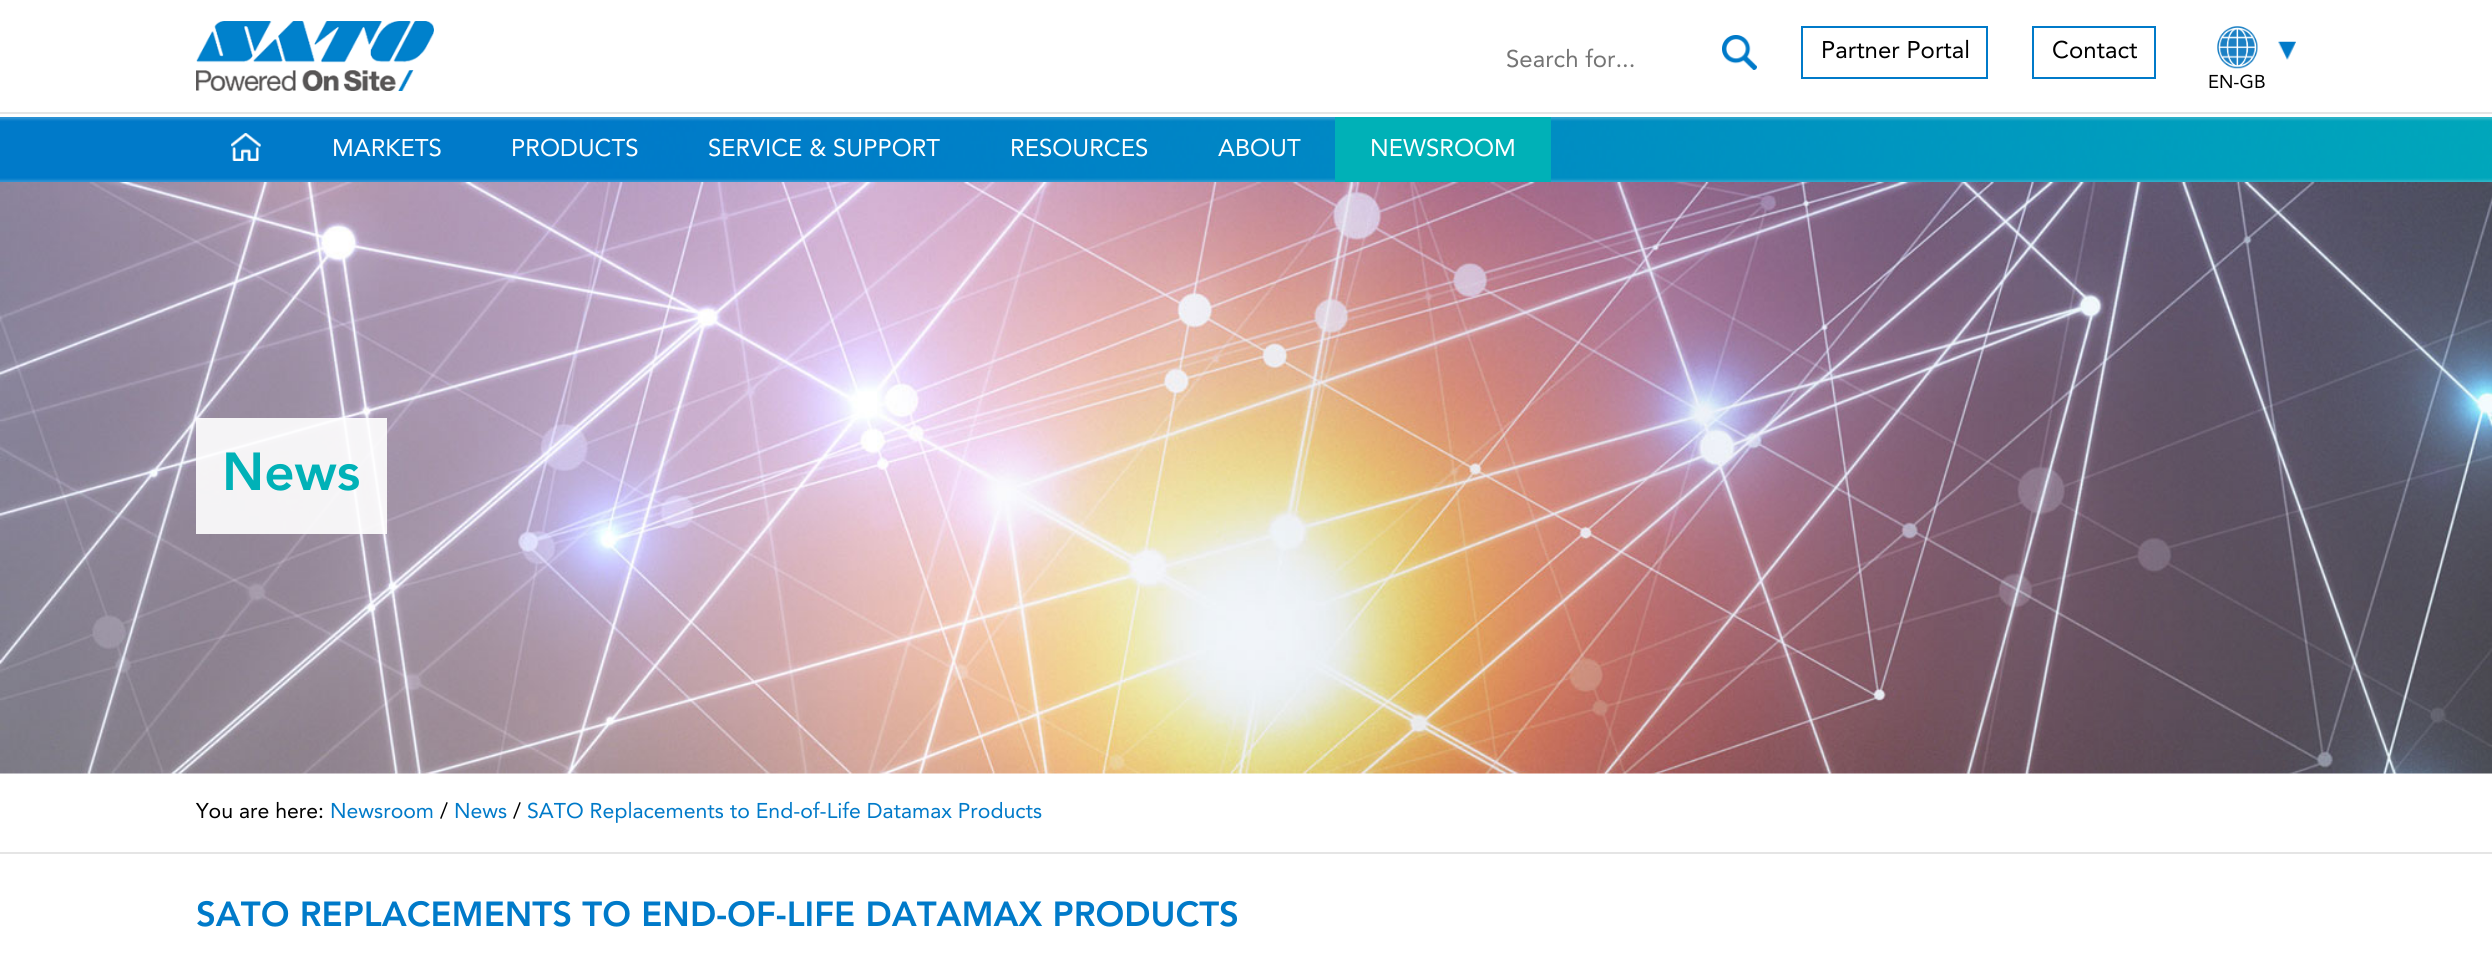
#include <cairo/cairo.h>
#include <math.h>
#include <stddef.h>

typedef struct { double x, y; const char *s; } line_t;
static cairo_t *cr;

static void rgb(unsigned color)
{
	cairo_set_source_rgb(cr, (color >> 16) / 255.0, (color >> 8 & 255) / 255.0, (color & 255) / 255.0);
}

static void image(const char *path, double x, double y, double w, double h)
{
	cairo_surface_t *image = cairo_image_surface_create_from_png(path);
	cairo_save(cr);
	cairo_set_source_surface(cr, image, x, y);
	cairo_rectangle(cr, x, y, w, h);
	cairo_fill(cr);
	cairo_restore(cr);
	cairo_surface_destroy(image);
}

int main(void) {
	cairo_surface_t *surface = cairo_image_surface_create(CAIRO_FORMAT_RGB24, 2492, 956);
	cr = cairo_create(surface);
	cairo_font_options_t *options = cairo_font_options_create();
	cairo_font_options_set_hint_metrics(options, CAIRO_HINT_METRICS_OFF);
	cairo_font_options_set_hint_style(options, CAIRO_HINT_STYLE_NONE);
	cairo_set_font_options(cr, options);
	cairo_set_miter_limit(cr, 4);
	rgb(0xffffff);
	cairo_paint(cr);
	image("img/1.png", 196, 21, 238, 70);
	image("img/2.png", 1722, 35, 35, 35);
	cairo_rectangle(cr, 1802, 27, 185, 51);
	rgb(0x007ac9);
	cairo_stroke(cr);
	cairo_rectangle(cr, 2033, 27, 122, 51);
	cairo_stroke(cr);
	image("img/3.png", 2278, 41, 18, 19);
	image("img/4.png", 2217, 26, 41, 43);
	rgb(0xe5e5e5);
	cairo_rectangle(cr, 0, 112, 2492, 2);
	cairo_fill(cr);
	image("img/5.png", 0, 117, 2492, 65);
	image("img/6.png", 231, 133, 30, 28);
	rgb(0x00b1b7);
	cairo_rectangle(cr, 1335, 117, 216, 65);
	cairo_fill(cr);
	image("img/7.png", 0, 182, 2492, 592);
	cairo_set_source_rgba(cr, 1, 1, 1, 0.9);
	cairo_rectangle(cr, 196, 418, 191, 116);
	cairo_fill(cr);
	rgb(0xe5e5e5);
	cairo_rectangle(cr, 0, 852, 2492, 2);
	cairo_fill(cr);
	cairo_select_font_face(cr, "Avenir", CAIRO_FONT_SLANT_NORMAL, CAIRO_FONT_WEIGHT_NORMAL);
	cairo_set_font_size(cr, 24);
	rgb(0x757575);
	cairo_move_to(cr, 1506, 67);
	cairo_show_text(cr, "Search for...");
	rgb(0x000000);
	cairo_move_to(cr, 1821, 58);
	cairo_show_text(cr, "Partner Portal");
	cairo_move_to(cr, 2052, 58);
	cairo_show_text(cr, "Contact");
	cairo_set_font_size(cr, 18.5);
	cairo_move_to(cr, 2208, 88);
	cairo_show_text(cr, "EN-GB");
	cairo_set_font_size(cr, 24);
	rgb(0xffffff);
	{
		static const line_t items[] = {
			{332, 156, "MARKETS"},
			{511, 156, "PRODUCTS"},
			{708, 156, "SERVICE & SUPPORT"},
			{1010, 156, "RESOURCES"},
			{1218, 156, "ABOUT"},
			{1370, 156, "NEWSROOM"},
		};
		for (size_t i = 0; i < sizeof items / sizeof *items; i++) {
			cairo_move_to(cr, items[i].x, items[i].y);
			cairo_show_text(cr, items[i].s);
		}
	}
	cairo_select_font_face(cr, "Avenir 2", CAIRO_FONT_SLANT_NORMAL, CAIRO_FONT_WEIGHT_NORMAL);
	cairo_set_font_size(cr, 53);
	rgb(0x00b1b7);
	cairo_move_to(cr, 222, 490);
	cairo_show_text(cr, "News");
	cairo_select_font_face(cr, "Avenir", CAIRO_FONT_SLANT_NORMAL, CAIRO_FONT_WEIGHT_NORMAL);
	cairo_set_font_size(cr, 21.25);
	rgb(0x000000);
	cairo_move_to(cr, 196, 818);
	cairo_show_text(cr, "You are here:");
	rgb(0x007ac9);
	cairo_move_to(cr, 330, 818);
	cairo_show_text(cr, "Newsroom");
	rgb(0x000000);
	cairo_move_to(cr, 440, 818);
	cairo_show_text(cr, "/");
	rgb(0x007ac9);
	cairo_move_to(cr, 454, 818);
	cairo_show_text(cr, "News");
	rgb(0x000000);
	cairo_move_to(cr, 513, 818);
	cairo_show_text(cr, "/");
	rgb(0x007ac9);
	cairo_move_to(cr, 527, 818);
	cairo_show_text(cr, "SATO Replacements to End-of-Life Datamax Products");
	cairo_select_font_face(cr, "Avenir 2", CAIRO_FONT_SLANT_NORMAL, CAIRO_FONT_WEIGHT_NORMAL);
	cairo_set_font_size(cr, 34.6);
	cairo_move_to(cr, 196, 926);
	cairo_show_text(cr, "SATO REPLACEMENTS TO END-OF-LIFE DATAMAX PRODUCTS");
	cairo_surface_write_to_png(surface, "page.png");
	cairo_font_options_destroy(options);
	cairo_destroy(cr);
	cairo_surface_destroy(surface);
	return 0;
}
